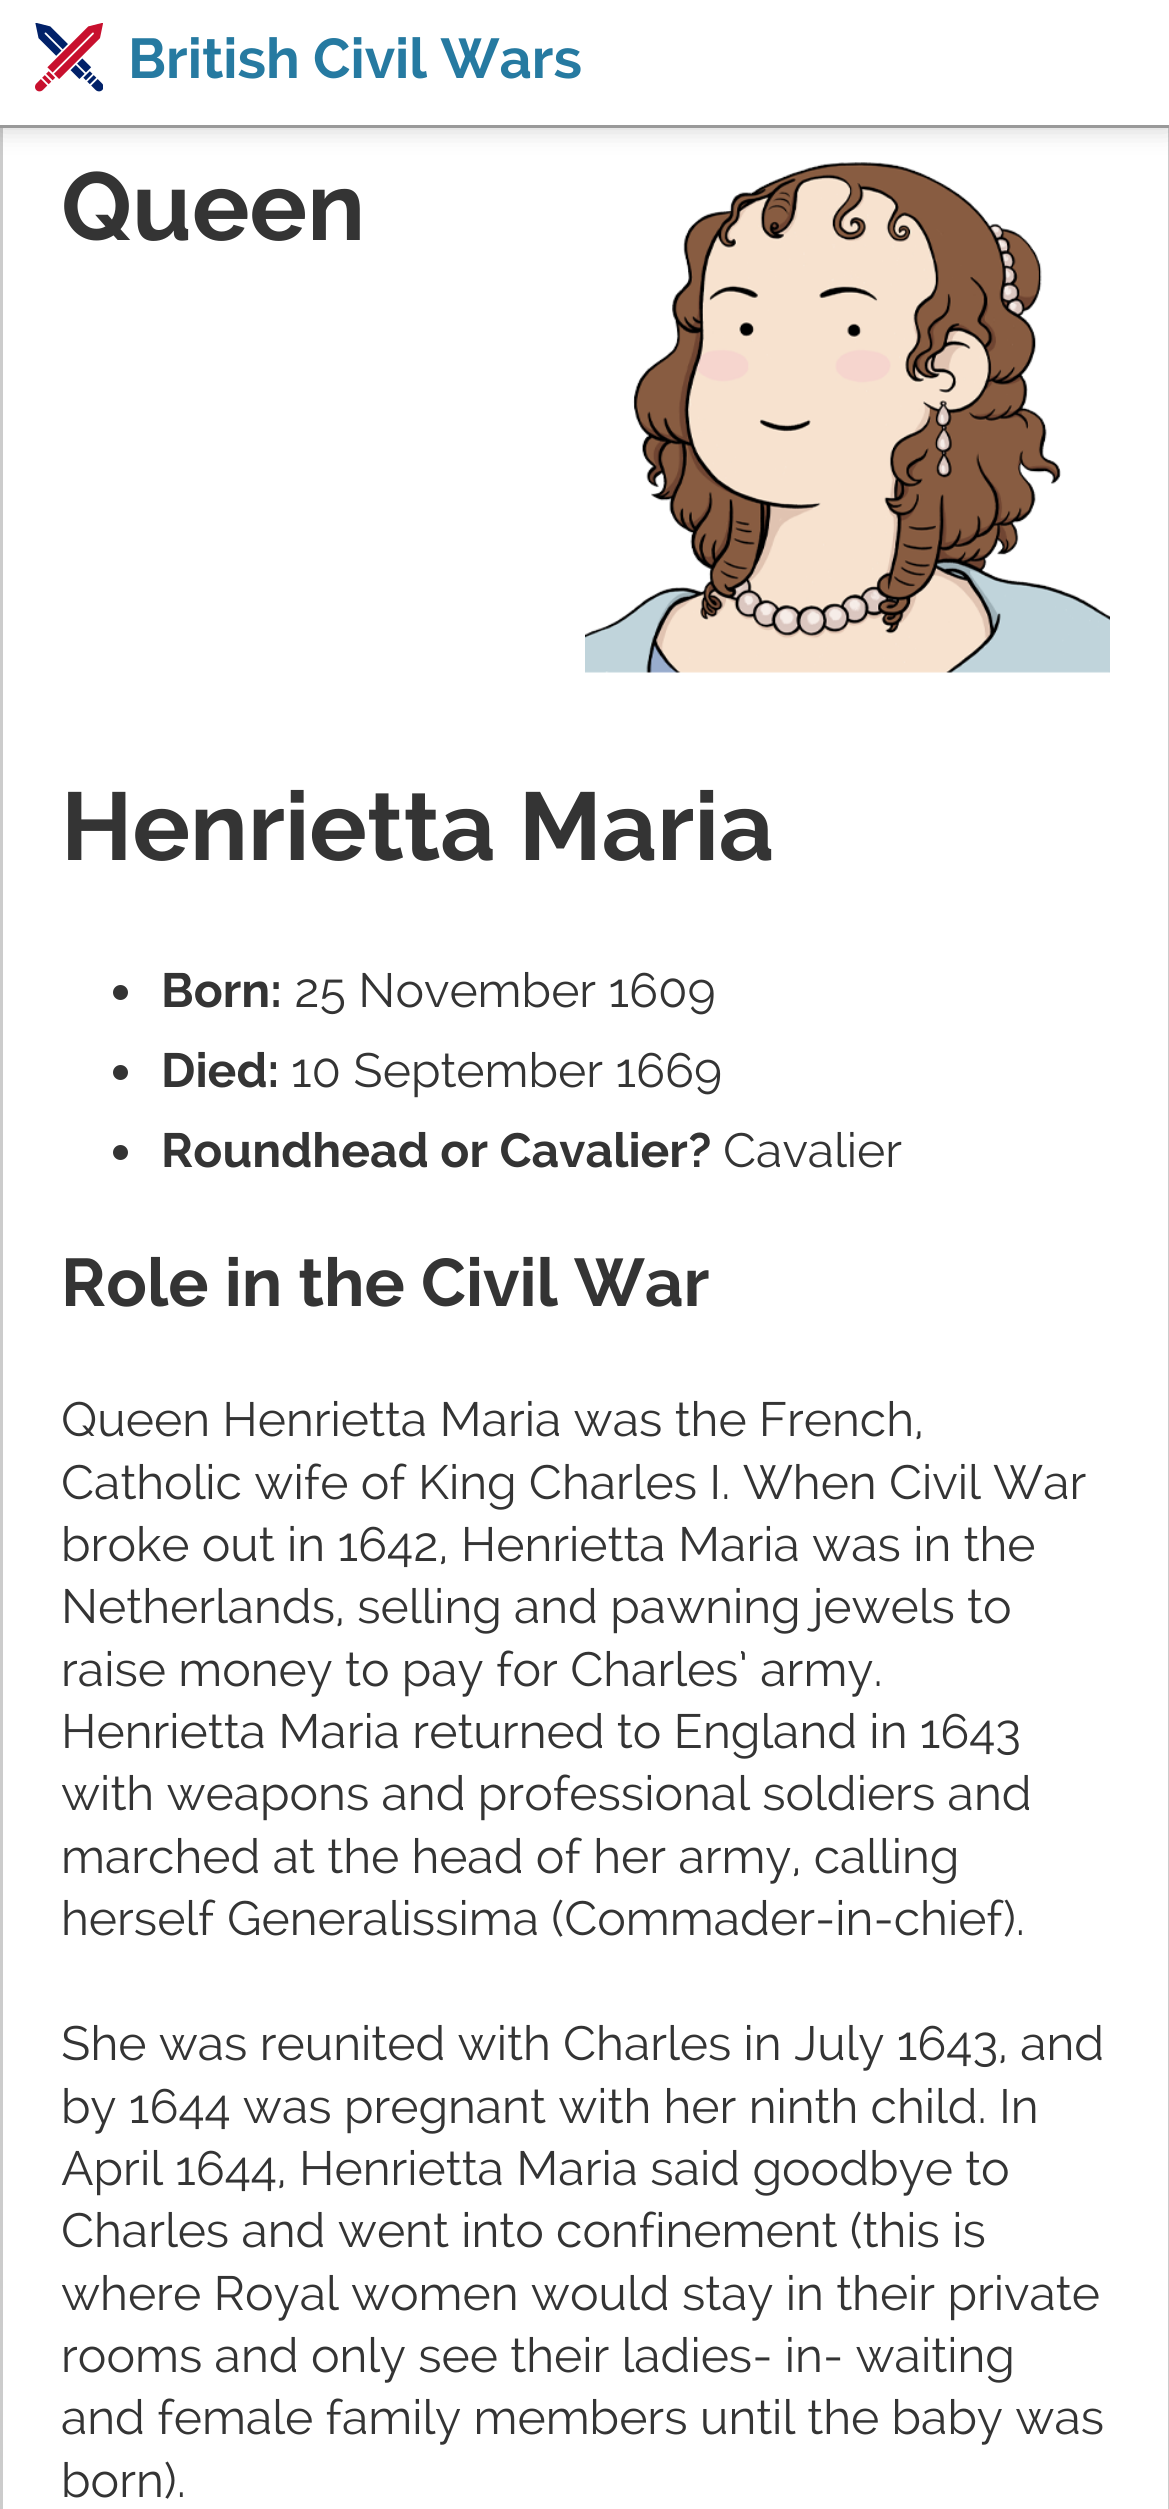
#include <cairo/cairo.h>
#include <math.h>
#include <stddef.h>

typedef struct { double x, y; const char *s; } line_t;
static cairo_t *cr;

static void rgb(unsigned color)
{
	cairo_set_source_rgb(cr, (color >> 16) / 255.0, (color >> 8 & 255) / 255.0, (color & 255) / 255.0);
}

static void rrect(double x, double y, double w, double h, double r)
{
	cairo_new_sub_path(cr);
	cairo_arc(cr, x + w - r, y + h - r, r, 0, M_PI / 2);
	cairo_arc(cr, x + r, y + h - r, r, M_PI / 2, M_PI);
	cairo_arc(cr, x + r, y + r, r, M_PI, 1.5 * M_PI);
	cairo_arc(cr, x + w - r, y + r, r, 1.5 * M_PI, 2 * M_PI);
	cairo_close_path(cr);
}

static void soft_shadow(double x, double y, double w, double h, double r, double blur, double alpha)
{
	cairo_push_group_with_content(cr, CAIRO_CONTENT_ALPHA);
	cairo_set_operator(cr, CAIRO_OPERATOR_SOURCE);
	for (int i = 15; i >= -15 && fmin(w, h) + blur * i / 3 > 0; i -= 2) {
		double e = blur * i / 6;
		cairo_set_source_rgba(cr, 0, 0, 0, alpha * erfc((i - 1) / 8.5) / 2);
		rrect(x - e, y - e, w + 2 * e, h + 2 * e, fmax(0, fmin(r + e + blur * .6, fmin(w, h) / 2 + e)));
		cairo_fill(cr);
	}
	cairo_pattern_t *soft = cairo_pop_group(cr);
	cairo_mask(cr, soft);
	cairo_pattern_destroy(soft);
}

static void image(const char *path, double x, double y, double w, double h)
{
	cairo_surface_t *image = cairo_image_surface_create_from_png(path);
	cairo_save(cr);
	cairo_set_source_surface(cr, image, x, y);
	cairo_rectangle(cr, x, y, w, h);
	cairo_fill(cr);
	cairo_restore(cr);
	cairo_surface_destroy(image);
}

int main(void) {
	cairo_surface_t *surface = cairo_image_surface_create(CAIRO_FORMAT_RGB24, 1169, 2509);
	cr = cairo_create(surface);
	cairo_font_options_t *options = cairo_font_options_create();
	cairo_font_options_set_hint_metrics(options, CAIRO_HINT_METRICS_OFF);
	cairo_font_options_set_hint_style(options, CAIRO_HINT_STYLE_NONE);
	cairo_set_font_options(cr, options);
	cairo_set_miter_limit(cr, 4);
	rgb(0xffffff);
	cairo_paint(cr);
	rgb(0xcccccc);
	cairo_rectangle(cr, 1168, 128, 1, 2381);
	cairo_fill(cr);
	cairo_rectangle(cr, 0, 128, 3, 2381);
	cairo_fill(cr);
	image("img/2.png", 585, 162, 525, 511);
	rgb(0x000000);
	soft_shadow(0, 0, 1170, 128, 0, 12.5, 0.2);
	rgb(0xffffff);
	cairo_rectangle(cr, 0, 0, 1169, 125);
	cairo_fill(cr);
	rgb(0x999999);
	cairo_rectangle(cr, 0, 125, 1169, 3);
	cairo_fill(cr);
	image("img/1.png", 35, 23, 68, 69);
	rgb(0x343434);
	cairo_arc(cr, 120.5, 992.5, 7.5, 0, 2 * M_PI);
	cairo_fill(cr);
	cairo_arc(cr, 120.5, 1072.5, 7.5, 0, 2 * M_PI);
	cairo_fill(cr);
	cairo_arc(cr, 120.5, 1152.5, 7.5, 0, 2 * M_PI);
	cairo_fill(cr);
	cairo_select_font_face(cr, "Raleway", CAIRO_FONT_SLANT_NORMAL, CAIRO_FONT_WEIGHT_BOLD);
	cairo_set_font_size(cr, 56);
	rgb(0x267aa1);
	cairo_move_to(cr, 128, 78);
	cairo_show_text(cr, "British Civil Wars");
	cairo_set_font_size(cr, 96);
	rgb(0x343434);
	cairo_move_to(cr, 61, 240);
	cairo_show_text(cr, "Queen");
	cairo_move_to(cr, 61, 860);
	cairo_show_text(cr, "Henrietta Maria");
	cairo_set_font_size(cr, 48);
	cairo_move_to(cr, 161, 1007);
	cairo_show_text(cr, "Born:");
	cairo_select_font_face(cr, "Raleway", CAIRO_FONT_SLANT_NORMAL, CAIRO_FONT_WEIGHT_NORMAL);
	cairo_move_to(cr, 294, 1007);
	cairo_show_text(cr, "25 November 1609");
	cairo_select_font_face(cr, "Raleway", CAIRO_FONT_SLANT_NORMAL, CAIRO_FONT_WEIGHT_BOLD);
	cairo_move_to(cr, 161, 1087);
	cairo_show_text(cr, "Died:");
	cairo_select_font_face(cr, "Raleway", CAIRO_FONT_SLANT_NORMAL, CAIRO_FONT_WEIGHT_NORMAL);
	cairo_move_to(cr, 291, 1087);
	cairo_show_text(cr, "10 September 1669");
	cairo_select_font_face(cr, "Raleway", CAIRO_FONT_SLANT_NORMAL, CAIRO_FONT_WEIGHT_BOLD);
	cairo_move_to(cr, 161, 1167);
	cairo_show_text(cr, "Roundhead or Cavalier?");
	cairo_select_font_face(cr, "Raleway", CAIRO_FONT_SLANT_NORMAL, CAIRO_FONT_WEIGHT_NORMAL);
	cairo_move_to(cr, 723, 1167);
	cairo_show_text(cr, "Cavalier");
	cairo_select_font_face(cr, "Raleway", CAIRO_FONT_SLANT_NORMAL, CAIRO_FONT_WEIGHT_BOLD);
	cairo_set_font_size(cr, 67.25);
	cairo_move_to(cr, 61, 1306);
	cairo_show_text(cr, "Role in the Civil War");
	cairo_select_font_face(cr, "Raleway", CAIRO_FONT_SLANT_NORMAL, CAIRO_FONT_WEIGHT_NORMAL);
	cairo_set_font_size(cr, 48);
	{
		static const line_t items[] = {
			{61, 1436, "Queen Henrietta Maria was the French,"},
			{61, 1499, "Catholic wife of King Charles I. When Civil War"},
			{61, 1561, "broke out in 1642, Henrietta Maria was in the"},
			{61, 1623, "Netherlands, selling and pawning jewels to"},
			{61, 1686, "raise money to pay for Charles’ army."},
			{61, 1748, "Henrietta Maria returned to England in 1643"},
			{61, 1810, "with weapons and professional soldiers and"},
			{61, 1873, "marched at the head of her army, calling"},
			{61, 1935, "herself Generalissima (Commader-in-chief)."},
			{61, 2060, "She was reunited with Charles in July 1643, and"},
			{61, 2123, "by 1644 was pregnant with her ninth child. In"},
			{61, 2185, "April 1644, Henrietta Maria said goodbye to"},
			{61, 2247, "Charles and went into confinement (this is"},
			{61, 2310, "where Royal women would stay in their private"},
			{61, 2372, "rooms and only see their ladies- in- waiting"},
			{61, 2434, "and female family members until the baby was"},
			{61, 2497, "born)."},
		};
		for (size_t i = 0; i < sizeof items / sizeof *items; i++) {
			cairo_move_to(cr, items[i].x, items[i].y);
			cairo_show_text(cr, items[i].s);
		}
	}
	cairo_surface_write_to_png(surface, "page.png");
	cairo_font_options_destroy(options);
	cairo_destroy(cr);
	cairo_surface_destroy(surface);
	return 0;
}
